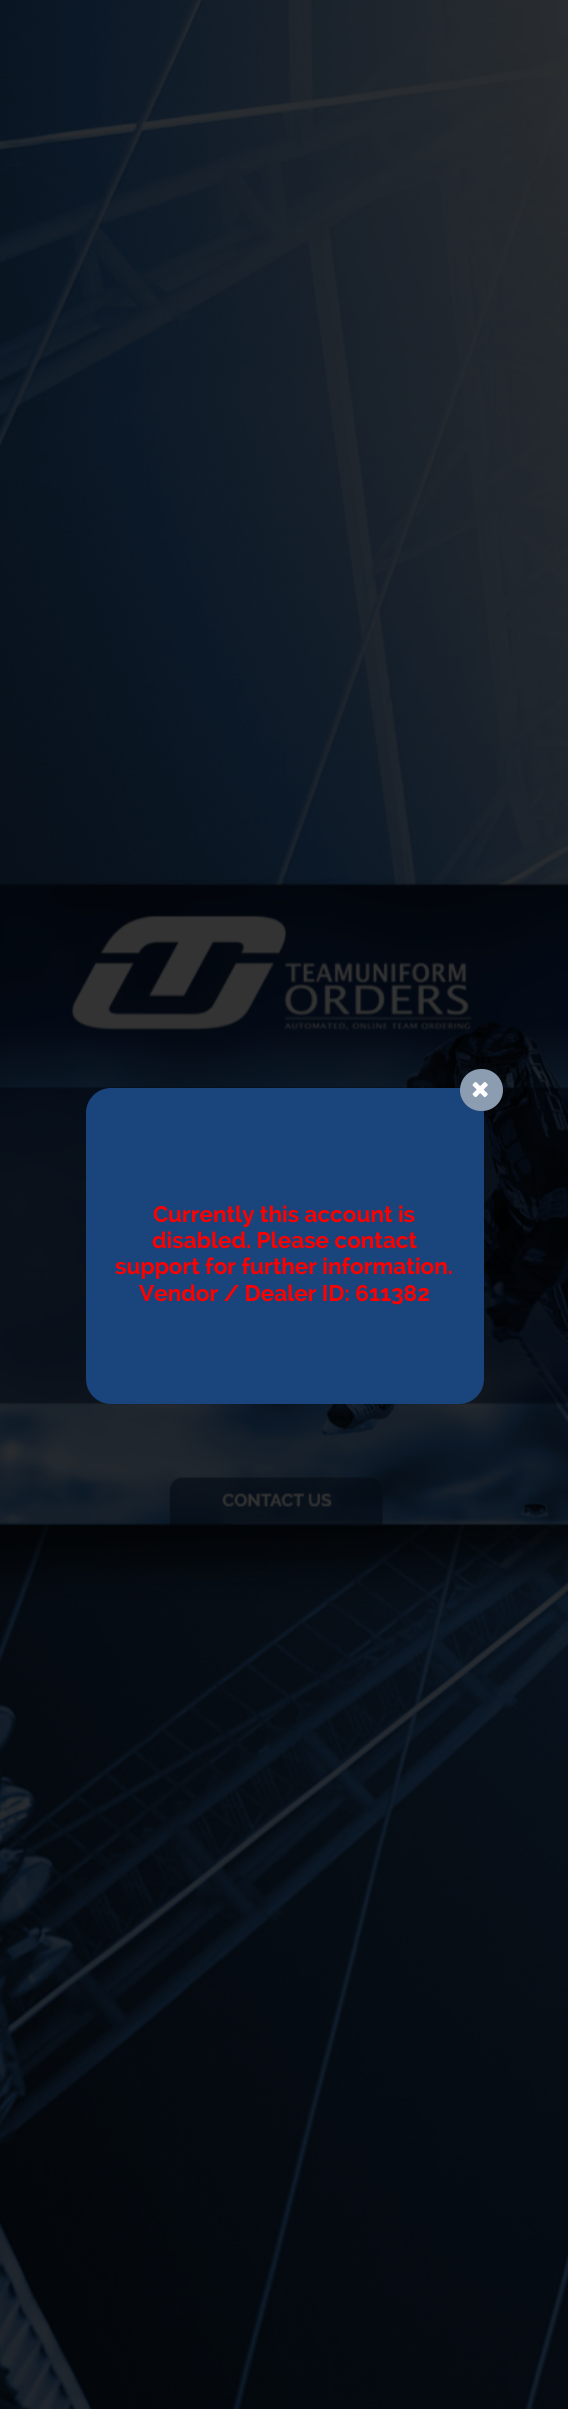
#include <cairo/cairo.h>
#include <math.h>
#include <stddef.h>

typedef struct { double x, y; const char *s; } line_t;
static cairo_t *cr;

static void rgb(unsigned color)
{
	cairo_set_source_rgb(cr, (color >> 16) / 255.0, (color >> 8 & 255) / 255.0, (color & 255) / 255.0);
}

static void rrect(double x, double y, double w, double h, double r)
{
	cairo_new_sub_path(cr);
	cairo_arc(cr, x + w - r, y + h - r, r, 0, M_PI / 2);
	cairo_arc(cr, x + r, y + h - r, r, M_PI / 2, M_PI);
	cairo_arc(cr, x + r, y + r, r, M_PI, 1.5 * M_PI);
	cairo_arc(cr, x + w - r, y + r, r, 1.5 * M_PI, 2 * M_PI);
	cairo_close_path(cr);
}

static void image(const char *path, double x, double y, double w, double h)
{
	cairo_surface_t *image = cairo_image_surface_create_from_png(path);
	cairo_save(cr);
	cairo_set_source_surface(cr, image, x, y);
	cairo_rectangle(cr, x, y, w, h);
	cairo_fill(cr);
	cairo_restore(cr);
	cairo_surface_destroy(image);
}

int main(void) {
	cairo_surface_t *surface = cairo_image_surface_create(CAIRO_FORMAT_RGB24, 568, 2409);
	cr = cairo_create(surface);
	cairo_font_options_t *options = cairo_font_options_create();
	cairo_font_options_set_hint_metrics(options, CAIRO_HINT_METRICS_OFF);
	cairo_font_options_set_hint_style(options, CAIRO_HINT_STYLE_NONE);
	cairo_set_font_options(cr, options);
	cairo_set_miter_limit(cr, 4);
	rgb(0xffffff);
	cairo_paint(cr);
	image("img/1.png", 0, 0, 568, 2409);
	image("img/2.png", 0, 879, 568, 724);
	rgb(0x19447c);
	rrect(86, 1088, 398, 316, 25);
	cairo_fill(cr);
	rgb(0x8c9cb1);
	rrect(460, 1069, 43, 42, 21);
	cairo_fill(cr);
	image("img/3.png", 472, 1082, 16, 16);
	cairo_select_font_face(cr, "Raleway", CAIRO_FONT_SLANT_NORMAL, CAIRO_FONT_WEIGHT_BOLD);
	cairo_set_font_size(cr, 22.5);
	rgb(0xff0000);
	{
		static const line_t items[] = {
			{153, 1222, "Currently this account is"},
			{152, 1248, "disabled. Please contact"},
			{115, 1274, "support for further information."},
			{139, 1301, "Vendor / Dealer ID: 611382"},
		};
		for (size_t i = 0; i < sizeof items / sizeof *items; i++) {
			cairo_move_to(cr, items[i].x, items[i].y);
			cairo_show_text(cr, items[i].s);
		}
	}
	cairo_surface_write_to_png(surface, "page.png");
	cairo_font_options_destroy(options);
	cairo_destroy(cr);
	cairo_surface_destroy(surface);
	return 0;
}
